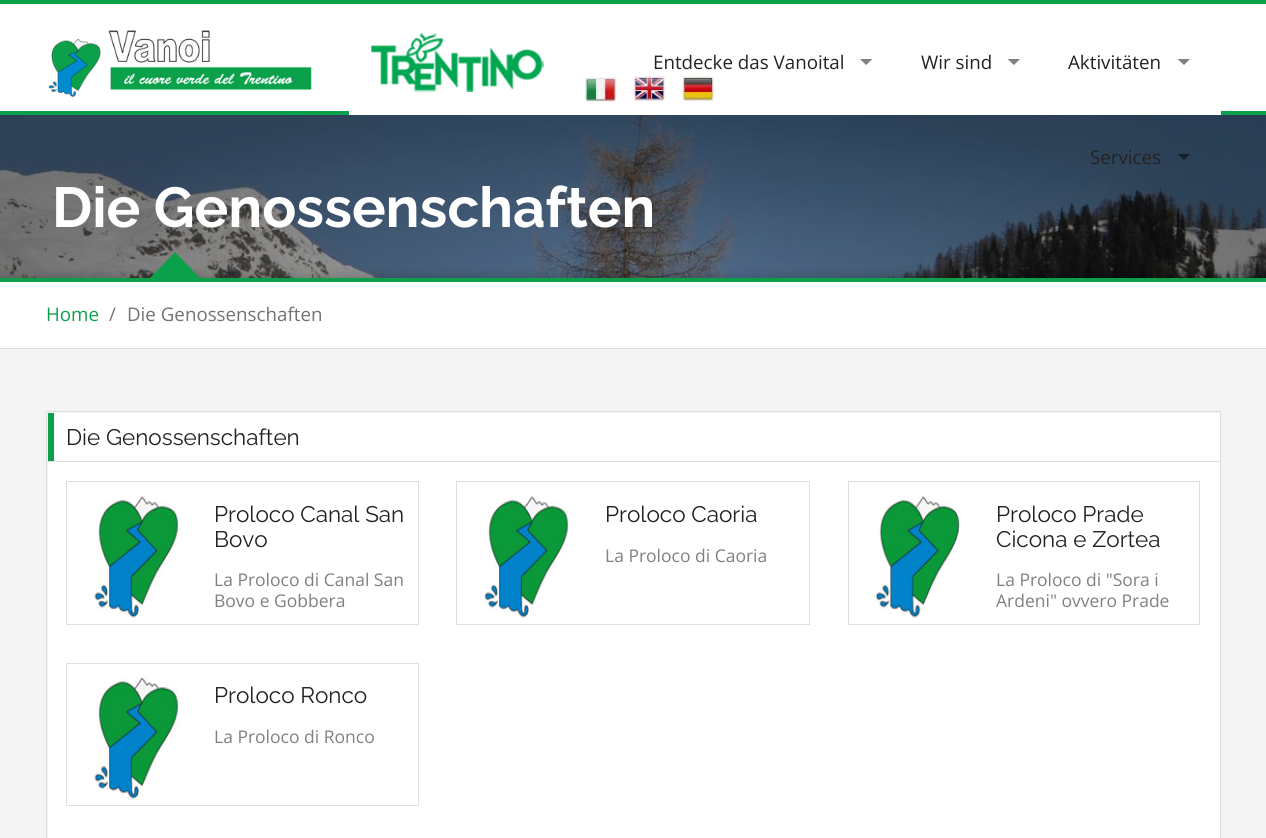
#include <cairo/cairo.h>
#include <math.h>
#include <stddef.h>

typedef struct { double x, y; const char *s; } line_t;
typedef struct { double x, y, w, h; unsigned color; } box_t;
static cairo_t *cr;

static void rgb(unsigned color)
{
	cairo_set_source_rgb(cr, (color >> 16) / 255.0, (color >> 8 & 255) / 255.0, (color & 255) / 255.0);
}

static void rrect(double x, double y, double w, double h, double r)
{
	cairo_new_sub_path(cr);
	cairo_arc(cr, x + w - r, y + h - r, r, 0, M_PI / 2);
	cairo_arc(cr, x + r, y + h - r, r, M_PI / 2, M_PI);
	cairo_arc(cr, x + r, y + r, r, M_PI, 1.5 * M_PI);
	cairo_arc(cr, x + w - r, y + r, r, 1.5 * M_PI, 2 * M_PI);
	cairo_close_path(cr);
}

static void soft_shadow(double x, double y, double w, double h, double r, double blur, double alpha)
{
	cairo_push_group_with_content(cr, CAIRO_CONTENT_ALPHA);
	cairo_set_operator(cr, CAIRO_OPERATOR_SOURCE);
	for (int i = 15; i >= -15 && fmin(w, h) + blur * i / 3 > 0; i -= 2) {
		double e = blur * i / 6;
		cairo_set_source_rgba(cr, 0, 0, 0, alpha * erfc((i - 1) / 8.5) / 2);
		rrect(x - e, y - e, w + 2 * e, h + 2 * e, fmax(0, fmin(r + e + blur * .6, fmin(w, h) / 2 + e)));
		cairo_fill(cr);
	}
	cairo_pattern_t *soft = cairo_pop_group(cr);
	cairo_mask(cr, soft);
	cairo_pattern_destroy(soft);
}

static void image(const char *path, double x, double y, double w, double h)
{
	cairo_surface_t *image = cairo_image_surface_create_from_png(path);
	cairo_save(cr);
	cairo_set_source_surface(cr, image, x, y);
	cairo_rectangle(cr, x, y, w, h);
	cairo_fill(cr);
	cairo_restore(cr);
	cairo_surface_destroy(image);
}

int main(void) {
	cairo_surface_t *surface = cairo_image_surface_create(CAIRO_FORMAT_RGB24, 1266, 838);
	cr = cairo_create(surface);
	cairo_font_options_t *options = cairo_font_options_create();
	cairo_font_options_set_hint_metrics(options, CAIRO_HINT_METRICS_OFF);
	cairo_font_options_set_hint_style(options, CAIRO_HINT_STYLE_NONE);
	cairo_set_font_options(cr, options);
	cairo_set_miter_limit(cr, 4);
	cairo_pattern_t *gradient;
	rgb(0xffffff);
	cairo_paint(cr);
	rgb(0x0ba14b);
	cairo_rectangle(cr, 0, 0, 1266, 4);
	cairo_fill(cr);
	cairo_rectangle(cr, 0, 111, 1266, 4);
	cairo_fill(cr);
	image("img/1.png", 48, 30, 264, 67);
	image("img/2.png", 371, 33, 173, 59);
	image("img/3.png", 585, 77, 32, 25);
	image("img/4.png", 633, 76, 32, 26);
	image("img/5.png", 682, 76, 32, 26);
	rgb(0xffffff);
	cairo_rectangle(cr, 349, 111, 872, 4);
	cairo_fill(cr);
	rgb(0x808080);
	cairo_new_path(cr);
	cairo_move_to(cr, 860, 59);
	cairo_line_to(cr, 872.5, 59);
	cairo_line_to(cr, 866, 65);
	cairo_close_path(cr);
	cairo_fill(cr);
	cairo_new_path(cr);
	cairo_move_to(cr, 1007.5, 59);
	cairo_line_to(cr, 1020, 59);
	cairo_line_to(cr, 1014, 65);
	cairo_close_path(cr);
	cairo_fill(cr);
	cairo_new_path(cr);
	cairo_move_to(cr, 1177.5, 59);
	cairo_line_to(cr, 1190, 59);
	cairo_line_to(cr, 1184, 65);
	cairo_close_path(cr);
	cairo_fill(cr);
	image("img/6.png", 0, 115, 1266, 163);
	gradient = cairo_pattern_create_radial(0, 0, 0, 0, 0, 1);
	cairo_pattern_set_matrix(gradient, &(cairo_matrix_t){1.0 / 633, 0, 0, 1.0 / 199, -1.0 * 633 / 633, -1.0 * 296 / 199});
	cairo_pattern_add_color_stop_rgba(gradient, 0.01, 0, 0, 0, 0.27);
	cairo_pattern_add_color_stop_rgba(gradient, 1, 0, 0, 0, 0.5);
	cairo_set_source(cr, gradient);
	cairo_pattern_destroy(gradient);
	cairo_rectangle(cr, 0, 115, 1266, 163);
	cairo_fill(cr);
	rgb(0x16202b);
	cairo_new_path(cr);
	cairo_move_to(cr, 1177.5, 154);
	cairo_line_to(cr, 1190, 154);
	cairo_line_to(cr, 1184, 160);
	cairo_close_path(cr);
	cairo_fill(cr);
	rgb(0x000000);
	soft_shadow(0, 279, 1266, 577, 0, 6, 0.3);
	{
		static const box_t items[] = {
			{0, 349, 1266, 489, 0xf4f4f4},
			{0, 282, 1266, 66, 0xffffff},
			{0, 278, 1266, 4, 0x0ba14b},
			{0, 348, 1266, 1, 0xdedede},
		};
		for (size_t i = 0; i < sizeof items / sizeof *items; i++) {
			rgb(items[i].color);
			cairo_rectangle(cr, items[i].x, items[i].y, items[i].w, items[i].h);
			cairo_fill(cr);
		}
	}
	rgb(0x0ba14b);
	cairo_new_path(cr);
	cairo_move_to(cr, 200, 278);
	cairo_line_to(cr, 150, 278);
	cairo_line_to(cr, 175, 252);
	cairo_close_path(cr);
	cairo_fill(cr);
	{
		static const box_t items[] = {
			{48, 413, 1172, 425, 0xffffff},
			{46, 411, 1175, 1, 0xdedede},
			{1220, 411, 1, 427, 0xdedede},
			{46, 411, 1, 427, 0xdedede},
			{48, 461, 1172, 1, 0xdddddd},
			{48, 413, 6, 48, 0x0ba14b},
		};
		for (size_t i = 0; i < sizeof items / sizeof *items; i++) {
			rgb(items[i].color);
			cairo_rectangle(cr, items[i].x, items[i].y, items[i].w, items[i].h);
			cairo_fill(cr);
		}
	}
	cairo_rectangle(cr, 66.5, 481.5, 352, 143);
	rgb(0xdedede);
	cairo_set_line_width(cr, 1);
	cairo_stroke(cr);
	image("img/7.png", 94, 496, 85, 122);
	cairo_rectangle(cr, 456.5, 481.5, 353, 143);
	cairo_stroke(cr);
	image("img/8.png", 484, 496, 85, 122);
	cairo_rectangle(cr, 848.5, 481.5, 351, 143);
	cairo_stroke(cr);
	image("img/9.png", 875, 496, 85, 122);
	cairo_rectangle(cr, 66.5, 663.5, 352, 142);
	cairo_stroke(cr);
	image("img/10.png", 94, 677, 85, 122);
	cairo_select_font_face(cr, "Open Sans", CAIRO_FONT_SLANT_NORMAL, CAIRO_FONT_WEIGHT_NORMAL);
	cairo_set_font_size(cr, 18.75);
	rgb(0x222222);
	{
		static const line_t items[] = {
			{653, 69, "Entdecke das Vanoital"},
			{921, 69, "Wir sind"},
			{1068, 69, "Aktivitäten"},
			{1090, 164, "Services"},
		};
		for (size_t i = 0; i < sizeof items / sizeof *items; i++) {
			cairo_move_to(cr, items[i].x, items[i].y);
			cairo_show_text(cr, items[i].s);
		}
	}
	cairo_select_font_face(cr, "Raleway", CAIRO_FONT_SLANT_NORMAL, CAIRO_FONT_WEIGHT_BOLD);
	cairo_set_font_size(cr, 56.25);
	rgb(0xffffff);
	cairo_move_to(cr, 52, 227);
	cairo_show_text(cr, "Die Genossenschaften");
	cairo_select_font_face(cr, "Open Sans", CAIRO_FONT_SLANT_NORMAL, CAIRO_FONT_WEIGHT_NORMAL);
	cairo_set_font_size(cr, 18.75);
	rgb(0x0ba14b);
	cairo_move_to(cr, 46, 321);
	cairo_show_text(cr, "Home");
	rgb(0x727272);
	cairo_move_to(cr, 109, 321);
	cairo_show_text(cr, "/");
	cairo_move_to(cr, 127, 321);
	cairo_show_text(cr, "Die Genossenschaften");
	cairo_select_font_face(cr, "Raleway", CAIRO_FONT_SLANT_NORMAL, CAIRO_FONT_WEIGHT_NORMAL);
	cairo_set_font_size(cr, 22.5);
	rgb(0x222222);
	{
		static const line_t items[] = {
			{66, 445, "Die Genossenschaften"},
			{214, 522, "Proloco Canal San"},
			{214, 547, "Bovo"},
		};
		for (size_t i = 0; i < sizeof items / sizeof *items; i++) {
			cairo_move_to(cr, items[i].x, items[i].y);
			cairo_show_text(cr, items[i].s);
		}
	}
	cairo_select_font_face(cr, "Open Sans", CAIRO_FONT_SLANT_NORMAL, CAIRO_FONT_WEIGHT_NORMAL);
	cairo_set_font_size(cr, 17.5);
	rgb(0x808080);
	cairo_move_to(cr, 214, 586);
	cairo_show_text(cr, "La Proloco di Canal San");
	cairo_move_to(cr, 214, 607);
	cairo_show_text(cr, "Bovo e Gobbera");
	cairo_select_font_face(cr, "Raleway", CAIRO_FONT_SLANT_NORMAL, CAIRO_FONT_WEIGHT_NORMAL);
	cairo_set_font_size(cr, 22.5);
	rgb(0x222222);
	cairo_move_to(cr, 605, 522);
	cairo_show_text(cr, "Proloco Caoria");
	cairo_select_font_face(cr, "Open Sans", CAIRO_FONT_SLANT_NORMAL, CAIRO_FONT_WEIGHT_NORMAL);
	cairo_set_font_size(cr, 17.5);
	rgb(0x808080);
	cairo_move_to(cr, 605, 562);
	cairo_show_text(cr, "La Proloco di Caoria");
	cairo_select_font_face(cr, "Raleway", CAIRO_FONT_SLANT_NORMAL, CAIRO_FONT_WEIGHT_NORMAL);
	cairo_set_font_size(cr, 22.5);
	rgb(0x222222);
	cairo_move_to(cr, 996, 522);
	cairo_show_text(cr, "Proloco Prade");
	cairo_move_to(cr, 996, 547);
	cairo_show_text(cr, "Cicona e Zortea");
	cairo_select_font_face(cr, "Open Sans", CAIRO_FONT_SLANT_NORMAL, CAIRO_FONT_WEIGHT_NORMAL);
	cairo_set_font_size(cr, 17.5);
	rgb(0x808080);
	cairo_move_to(cr, 996, 586);
	cairo_show_text(cr, "La Proloco di \"Sora i");
	cairo_move_to(cr, 996, 607);
	cairo_show_text(cr, "Ardeni\" ovvero Prade");
	cairo_select_font_face(cr, "Raleway", CAIRO_FONT_SLANT_NORMAL, CAIRO_FONT_WEIGHT_NORMAL);
	cairo_set_font_size(cr, 22.5);
	rgb(0x222222);
	cairo_move_to(cr, 214, 703);
	cairo_show_text(cr, "Proloco Ronco");
	cairo_select_font_face(cr, "Open Sans", CAIRO_FONT_SLANT_NORMAL, CAIRO_FONT_WEIGHT_NORMAL);
	cairo_set_font_size(cr, 17.5);
	rgb(0x808080);
	cairo_move_to(cr, 214, 743);
	cairo_show_text(cr, "La Proloco di Ronco");
	cairo_surface_write_to_png(surface, "page.png");
	cairo_font_options_destroy(options);
	cairo_destroy(cr);
	cairo_surface_destroy(surface);
	return 0;
}
